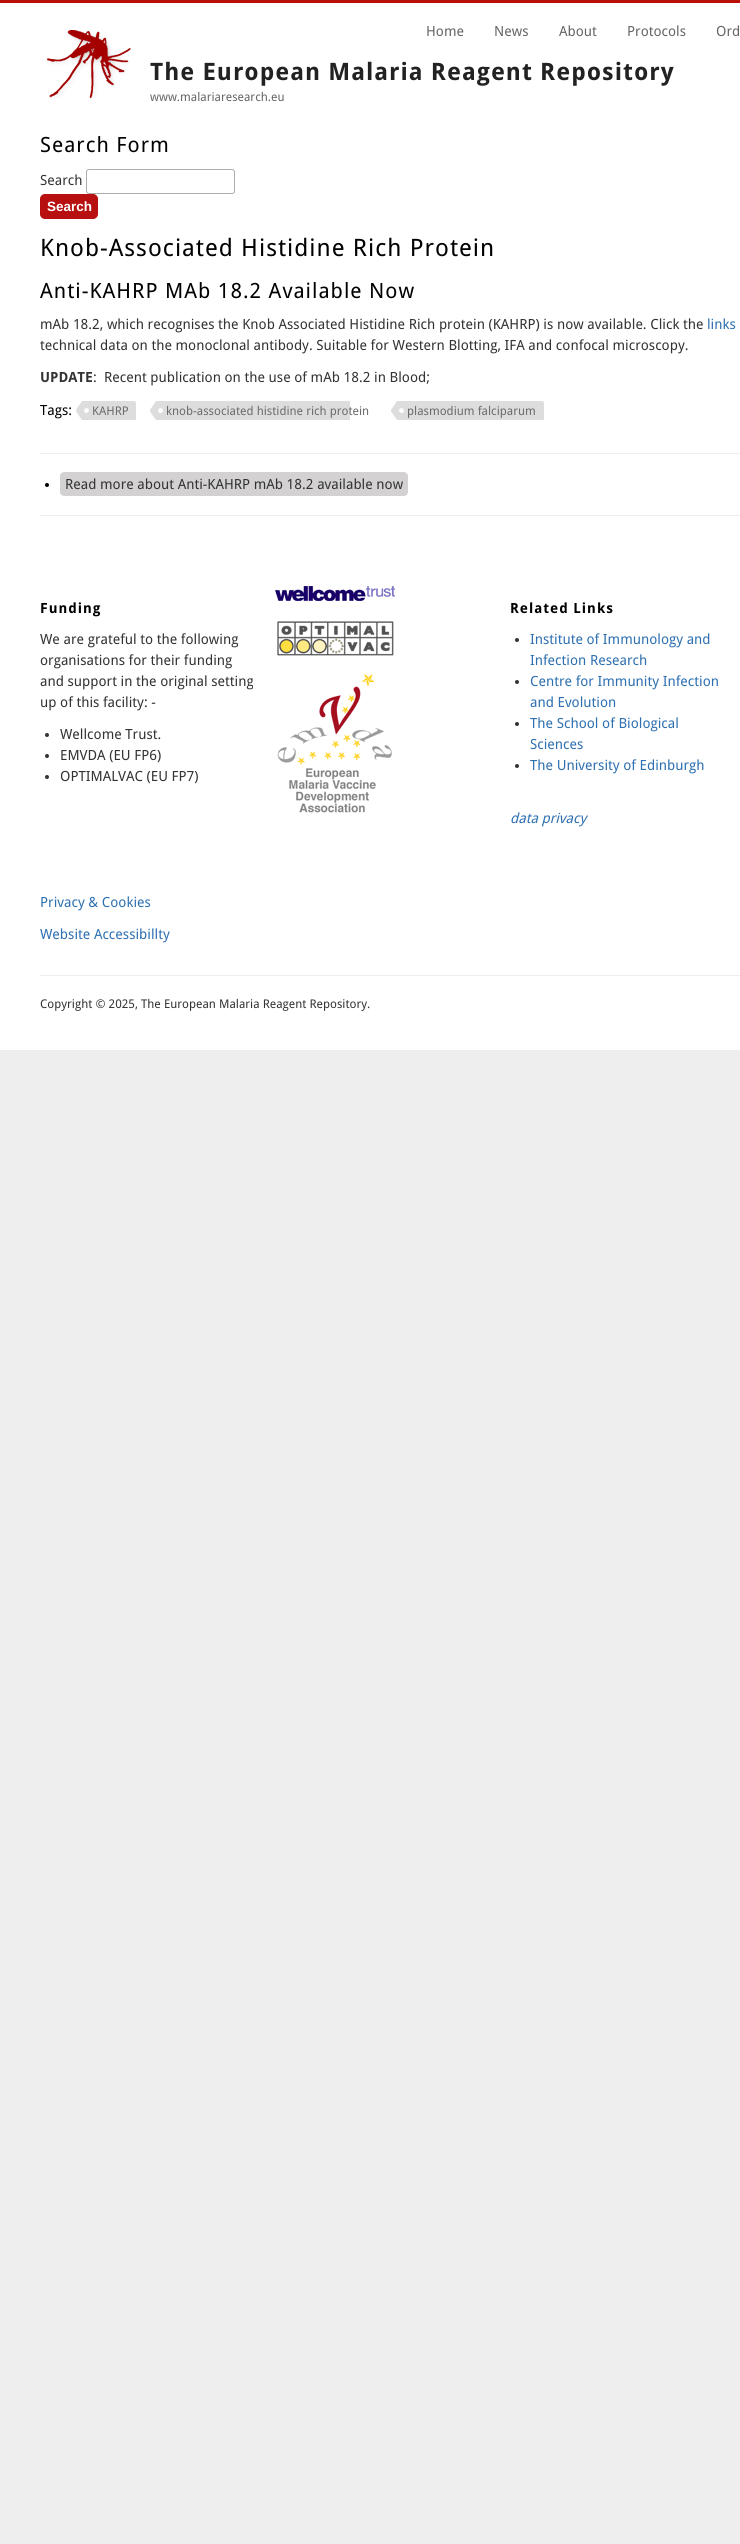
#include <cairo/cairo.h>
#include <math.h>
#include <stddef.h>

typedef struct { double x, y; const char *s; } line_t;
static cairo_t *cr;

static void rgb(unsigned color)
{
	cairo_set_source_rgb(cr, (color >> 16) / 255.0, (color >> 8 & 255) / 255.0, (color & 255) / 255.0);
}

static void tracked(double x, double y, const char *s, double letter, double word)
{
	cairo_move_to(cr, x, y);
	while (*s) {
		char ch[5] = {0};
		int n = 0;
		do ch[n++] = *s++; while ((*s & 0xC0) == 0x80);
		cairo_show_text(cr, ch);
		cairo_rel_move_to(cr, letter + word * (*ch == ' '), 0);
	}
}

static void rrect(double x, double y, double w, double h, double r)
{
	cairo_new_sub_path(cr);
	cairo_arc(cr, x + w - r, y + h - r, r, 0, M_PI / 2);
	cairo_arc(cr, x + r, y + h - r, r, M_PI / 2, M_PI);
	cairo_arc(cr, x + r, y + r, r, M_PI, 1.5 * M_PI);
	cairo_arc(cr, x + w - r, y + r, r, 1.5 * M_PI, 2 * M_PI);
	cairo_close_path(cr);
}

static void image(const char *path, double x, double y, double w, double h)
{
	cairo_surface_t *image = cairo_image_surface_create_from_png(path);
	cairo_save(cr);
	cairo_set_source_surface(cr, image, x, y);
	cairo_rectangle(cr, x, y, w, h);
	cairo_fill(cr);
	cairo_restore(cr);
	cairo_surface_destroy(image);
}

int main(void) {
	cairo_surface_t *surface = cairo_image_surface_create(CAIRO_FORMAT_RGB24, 740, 2544);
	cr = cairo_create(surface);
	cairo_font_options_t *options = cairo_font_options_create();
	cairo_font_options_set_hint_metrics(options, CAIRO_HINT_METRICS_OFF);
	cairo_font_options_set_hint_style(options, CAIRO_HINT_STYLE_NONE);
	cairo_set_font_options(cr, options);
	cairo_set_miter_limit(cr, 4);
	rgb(0xeeeeee);
	cairo_paint(cr);
	rgb(0xffffff);
	cairo_rectangle(cr, 0, 3, 740, 1047);
	cairo_fill(cr);
	rgb(0xb81007);
	cairo_rectangle(cr, 0, 0, 740, 3);
	cairo_fill(cr);
	image("img/1.png", 47, 30, 84, 69);
	rrect(86.5, 169.5, 148, 24, 2.5);
	rgb(0xacacac);
	cairo_set_line_width(cr, 1);
	cairo_stroke(cr);
	rgb(0xb81010);
	rrect(40.5, 194.5, 57, 24, 4.5);
	cairo_fill_preserve(cr);
	cairo_stroke(cr);
	rgb(0xeeeeee);
	cairo_rectangle(cr, 40, 515, 700, 1);
	cairo_fill(cr);
	cairo_rectangle(cr, 40, 453, 700, 1);
	cairo_fill(cr);
	image("img/2.png", 76, 401, 60, 19);
	image("img/3.png", 150, 401, 200, 19);
	image("img/4.png", 391, 401, 153, 19);
	rgb(0x000000);
	cairo_arc(cr, 47, 485, 2, 0, 2 * M_PI);
	cairo_fill(cr);
	rgb(0xd3d1d1);
	cairo_new_path(cr);
	cairo_move_to(cr, 64, 472);
	cairo_line_to(cr, 134, 472);
	cairo_line_to(cr, 134, 496);
	cairo_line_to(cr, 64, 496);
	cairo_curve_to(cr, 62, 496, 60, 494, 60, 492);
	cairo_line_to(cr, 60, 476);
	cairo_curve_to(cr, 60, 474, 62, 472, 64, 472);
	cairo_close_path(cr);
	cairo_fill(cr);
	cairo_new_path(cr);
	cairo_move_to(cr, 134, 472);
	cairo_line_to(cr, 404, 472);
	cairo_curve_to(cr, 406, 472, 408, 474, 408, 476);
	cairo_line_to(cr, 408, 492);
	cairo_curve_to(cr, 408, 494, 406, 496, 404, 496);
	cairo_line_to(cr, 134, 496);
	cairo_close_path(cr);
	cairo_fill(cr);
	rgb(0x333333);
	cairo_arc(cr, 47, 735, 2, 0, 2 * M_PI);
	cairo_fill(cr);
	cairo_arc(cr, 47, 756, 2, 0, 2 * M_PI);
	cairo_fill(cr);
	cairo_arc(cr, 47, 777, 2, 0, 2 * M_PI);
	cairo_fill(cr);
	image("img/5.png", 275, 586, 120, 15);
	image("img/6.png", 277, 621, 117, 35);
	image("img/7.png", 277, 674, 115, 139);
	cairo_arc(cr, 517, 640, 2, 0, 2 * M_PI);
	cairo_fill(cr);
	cairo_arc(cr, 517, 682, 2, 0, 2 * M_PI);
	cairo_fill(cr);
	cairo_arc(cr, 517, 724, 2, 0, 2 * M_PI);
	cairo_fill(cr);
	cairo_arc(cr, 517, 766, 2, 0, 2 * M_PI);
	cairo_fill(cr);
	rgb(0xeeeeee);
	cairo_rectangle(cr, 40, 975, 700, 1);
	cairo_fill(cr);
	cairo_select_font_face(cr, "Droid Sans", CAIRO_FONT_SLANT_NORMAL, CAIRO_FONT_WEIGHT_NORMAL);
	cairo_set_font_size(cr, 14);
	rgb(0x666666);
	{
		static const line_t items[] = {
			{426, 36, "Home"},
			{494, 36, "News"},
			{559, 36, "About"},
			{627, 36, "Protocols"},
			{716, 36, "Ord"},
		};
		for (size_t i = 0; i < sizeof items / sizeof *items; i++) {
			cairo_move_to(cr, items[i].x, items[i].y);
			cairo_show_text(cr, items[i].s);
		}
	}
	cairo_select_font_face(cr, "Droid Sans", CAIRO_FONT_SLANT_NORMAL, CAIRO_FONT_WEIGHT_BOLD);
	cairo_set_font_size(cr, 24);
	rgb(0x222222);
	tracked(150, 80, "The European Malaria Reagent Repository", 1, 0);
	cairo_select_font_face(cr, "Droid Sans", CAIRO_FONT_SLANT_NORMAL, CAIRO_FONT_WEIGHT_NORMAL);
	cairo_set_font_size(cr, 12);
	rgb(0x666666);
	cairo_move_to(cr, 150, 101);
	cairo_show_text(cr, "www.malariaresearch.eu");
	cairo_set_font_size(cr, 21);
	rgb(0x000000);
	tracked(40, 152, "Search Form", 1, 0);
	cairo_set_font_size(cr, 14);
	rgb(0x333333);
	cairo_move_to(cr, 40, 185);
	cairo_show_text(cr, "Search");
	cairo_select_font_face(cr, "Liberation Sans", CAIRO_FONT_SLANT_NORMAL, CAIRO_FONT_WEIGHT_BOLD);
	cairo_set_font_size(cr, 13.5);
	rgb(0xffffff);
	cairo_move_to(cr, 47, 211);
	cairo_show_text(cr, "Search");
	cairo_select_font_face(cr, "Droid Sans", CAIRO_FONT_SLANT_NORMAL, CAIRO_FONT_WEIGHT_NORMAL);
	cairo_set_font_size(cr, 24);
	rgb(0x000000);
	tracked(40, 256, "Knob-Associated Histidine Rich Protein", 1, 0);
	cairo_set_font_size(cr, 21);
	tracked(40, 298, "Anti-KAHRP MAb 18.2 Available Now", 1, 0);
	cairo_set_font_size(cr, 14);
	rgb(0x333333);
	cairo_move_to(cr, 40, 329);
	cairo_show_text(cr, "mAb 18.2, which recognises the Knob Associated Histidine Rich protein (KAHRP) is now available. Click the");
	rgb(0x2e70b1);
	cairo_move_to(cr, 707, 329);
	cairo_show_text(cr, "links");
	rgb(0x333333);
	cairo_move_to(cr, 40, 350);
	cairo_show_text(cr, "technical data on the monoclonal antibody. Suitable for Western Blotting, IFA and confocal microscopy.");
	cairo_select_font_face(cr, "Droid Sans", CAIRO_FONT_SLANT_NORMAL, CAIRO_FONT_WEIGHT_BOLD);
	cairo_move_to(cr, 40, 382);
	cairo_show_text(cr, "UPDATE");
	cairo_select_font_face(cr, "Droid Sans", CAIRO_FONT_SLANT_NORMAL, CAIRO_FONT_WEIGHT_NORMAL);
	cairo_move_to(cr, 93, 382);
	cairo_show_text(cr, ":  Recent publication on the use of mAb 18.2 in Blood;");
	rgb(0x000000);
	cairo_move_to(cr, 40, 415);
	cairo_show_text(cr, "Tags:");
	cairo_set_font_size(cr, 12);
	rgb(0x6c6c6c);
	{
		static const line_t items[] = {
			{92, 415, "KAHRP"},
			{166, 415, "knob-associated histidine rich protein"},
			{407, 415, "plasmodium falciparum"},
		};
		for (size_t i = 0; i < sizeof items / sizeof *items; i++) {
			cairo_move_to(cr, items[i].x, items[i].y);
			cairo_show_text(cr, items[i].s);
		}
	}
	cairo_set_font_size(cr, 14);
	rgb(0x333333);
	cairo_move_to(cr, 65, 489);
	cairo_show_text(cr, "Read more about Anti-KAHRP mAb 18.2 available now");
	cairo_select_font_face(cr, "Droid Sans", CAIRO_FONT_SLANT_NORMAL, CAIRO_FONT_WEIGHT_BOLD);
	rgb(0x000000);
	tracked(40, 613, "Funding", 1, 0);
	cairo_select_font_face(cr, "Droid Sans", CAIRO_FONT_SLANT_NORMAL, CAIRO_FONT_WEIGHT_NORMAL);
	rgb(0x333333);
	{
		static const line_t items[] = {
			{40, 644, "We are grateful to the following"},
			{40, 665, "organisations for their funding"},
			{40, 686, "and support in the original setting"},
			{40, 707, "up of this facility: -"},
			{60, 739, "Wellcome Trust."},
			{60, 760, "EMVDA (EU FP6)"},
			{60, 781, "OPTIMALVAC (EU FP7)"},
		};
		for (size_t i = 0; i < sizeof items / sizeof *items; i++) {
			cairo_move_to(cr, items[i].x, items[i].y);
			cairo_show_text(cr, items[i].s);
		}
	}
	cairo_select_font_face(cr, "Droid Sans", CAIRO_FONT_SLANT_NORMAL, CAIRO_FONT_WEIGHT_BOLD);
	rgb(0x000000);
	tracked(510, 613, "Related Links", 1, 0);
	cairo_select_font_face(cr, "Droid Sans", CAIRO_FONT_SLANT_NORMAL, CAIRO_FONT_WEIGHT_NORMAL);
	rgb(0x2e70b1);
	{
		static const line_t items[] = {
			{530, 644, "Institute of Immunology and"},
			{530, 665, "Infection Research"},
			{530, 686, "Centre for Immunity Infection"},
			{530, 707, "and Evolution"},
			{530, 728, "The School of Biological"},
			{530, 749, "Sciences"},
			{530, 770, "The University of Edinburgh"},
		};
		for (size_t i = 0; i < sizeof items / sizeof *items; i++) {
			cairo_move_to(cr, items[i].x, items[i].y);
			cairo_show_text(cr, items[i].s);
		}
	}
	cairo_select_font_face(cr, "Droid Sans", CAIRO_FONT_SLANT_ITALIC, CAIRO_FONT_WEIGHT_NORMAL);
	cairo_move_to(cr, 510, 823);
	cairo_show_text(cr, "data privacy");
	cairo_select_font_face(cr, "Droid Sans", CAIRO_FONT_SLANT_NORMAL, CAIRO_FONT_WEIGHT_NORMAL);
	cairo_move_to(cr, 40, 907);
	cairo_show_text(cr, "Privacy & Cookies");
	cairo_move_to(cr, 40, 939);
	cairo_show_text(cr, "Website Accessibillty");
	cairo_set_font_size(cr, 12);
	rgb(0x333333);
	cairo_move_to(cr, 40, 1008);
	cairo_show_text(cr, "Copyright © 2025, The European Malaria Reagent Repository.");
	cairo_surface_write_to_png(surface, "page.png");
	cairo_font_options_destroy(options);
	cairo_destroy(cr);
	cairo_surface_destroy(surface);
	return 0;
}
